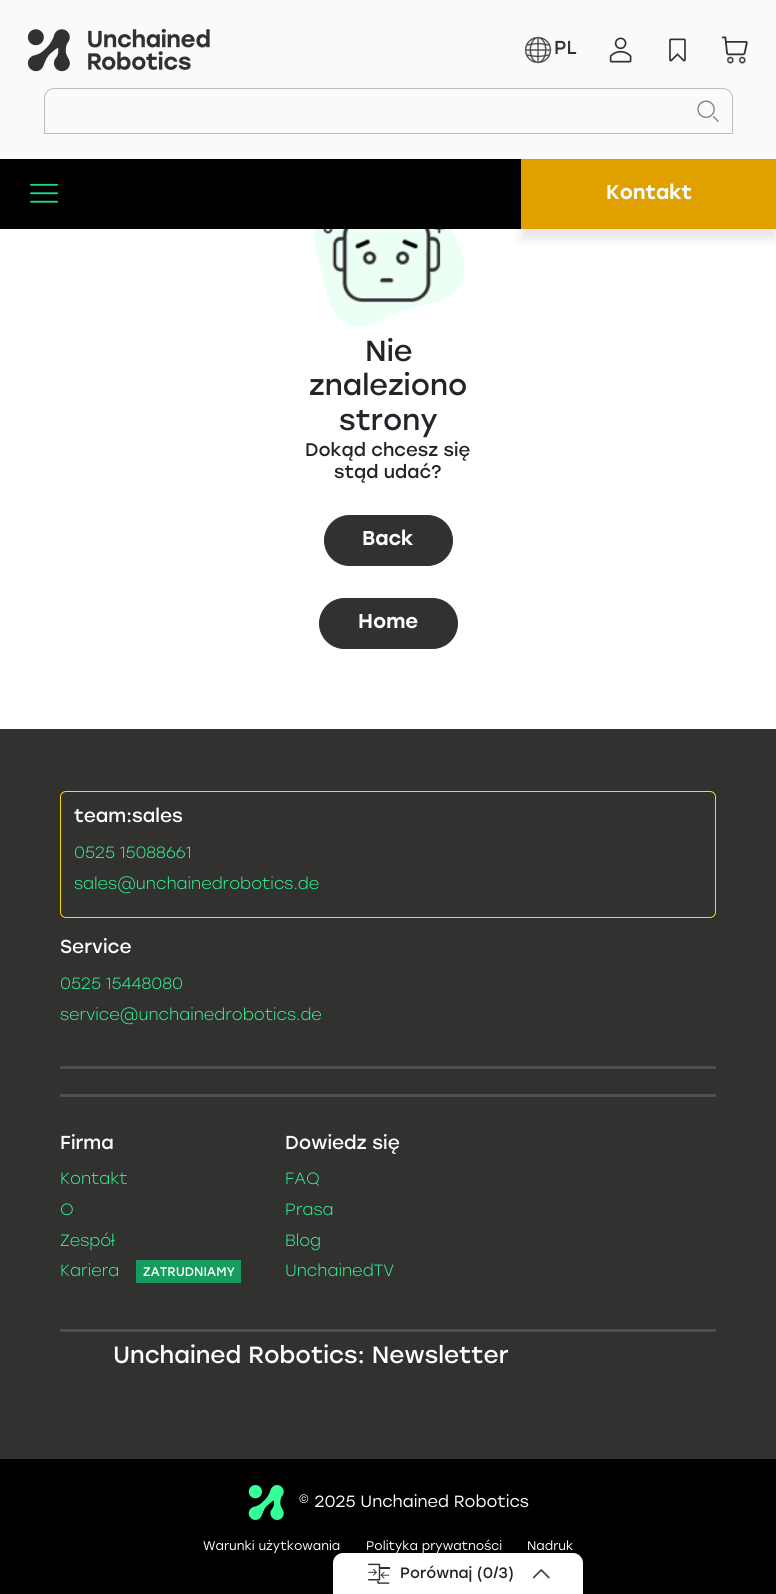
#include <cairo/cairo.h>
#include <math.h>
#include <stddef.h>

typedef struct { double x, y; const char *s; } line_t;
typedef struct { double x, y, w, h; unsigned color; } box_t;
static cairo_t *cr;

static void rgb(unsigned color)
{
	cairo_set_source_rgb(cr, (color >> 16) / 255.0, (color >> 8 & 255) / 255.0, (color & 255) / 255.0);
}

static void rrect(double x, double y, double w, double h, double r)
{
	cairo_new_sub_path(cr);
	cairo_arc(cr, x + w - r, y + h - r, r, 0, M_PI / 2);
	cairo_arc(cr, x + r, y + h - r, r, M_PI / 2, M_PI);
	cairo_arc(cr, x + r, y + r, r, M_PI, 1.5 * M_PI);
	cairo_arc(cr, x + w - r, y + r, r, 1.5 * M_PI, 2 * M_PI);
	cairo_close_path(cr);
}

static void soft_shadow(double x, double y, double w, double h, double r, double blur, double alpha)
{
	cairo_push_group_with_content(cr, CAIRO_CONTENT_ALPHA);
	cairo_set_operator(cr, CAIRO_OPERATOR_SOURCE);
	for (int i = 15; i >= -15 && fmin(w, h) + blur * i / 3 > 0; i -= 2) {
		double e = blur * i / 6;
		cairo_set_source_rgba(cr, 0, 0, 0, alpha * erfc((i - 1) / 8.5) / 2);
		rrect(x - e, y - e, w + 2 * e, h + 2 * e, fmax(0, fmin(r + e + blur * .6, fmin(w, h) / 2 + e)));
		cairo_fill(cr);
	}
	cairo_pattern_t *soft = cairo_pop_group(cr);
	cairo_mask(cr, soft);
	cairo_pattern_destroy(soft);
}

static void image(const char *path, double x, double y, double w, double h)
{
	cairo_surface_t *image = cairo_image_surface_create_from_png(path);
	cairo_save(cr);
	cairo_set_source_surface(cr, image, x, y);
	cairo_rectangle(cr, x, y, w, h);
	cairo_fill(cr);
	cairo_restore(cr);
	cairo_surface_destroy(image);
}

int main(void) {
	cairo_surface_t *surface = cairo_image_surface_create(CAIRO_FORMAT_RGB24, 776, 1594);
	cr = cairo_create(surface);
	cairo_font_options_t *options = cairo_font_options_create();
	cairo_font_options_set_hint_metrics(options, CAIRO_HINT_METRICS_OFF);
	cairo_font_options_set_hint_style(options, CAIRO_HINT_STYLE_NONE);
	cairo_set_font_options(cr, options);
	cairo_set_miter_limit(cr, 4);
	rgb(0xffffff);
	cairo_paint(cr);
	rgb(0xfafafa);
	cairo_rectangle(cr, 0, 0, 776, 159);
	cairo_fill(cr);
	image("img/1.png", 27, 28, 183, 44);
	image("img/2.png", 524, 36, 28, 28);
	image("img/3.png", 609, 37, 23, 26);
	image("img/4.png", 669, 38, 17, 24);
	image("img/5.png", 721, 36, 27, 28);
	cairo_new_path(cr);
	cairo_move_to(cr, 54, 88.5);
	cairo_line_to(cr, 723, 88.5);
	cairo_curve_to(cr, 728, 88.5, 732.5, 93, 732.5, 98);
	cairo_line_to(cr, 732.5, 133.5);
	cairo_line_to(cr, 44.5, 133.5);
	cairo_line_to(cr, 44.5, 98);
	cairo_curve_to(cr, 44.5, 93, 49, 88.5, 54, 88.5);
	cairo_close_path(cr);
	rgb(0xbdbdbd);
	cairo_set_line_width(cr, 1);
	cairo_stroke(cr);
	image("img/6.png", 697, 100, 22, 22);
	rgb(0x000000);
	cairo_rectangle(cr, 0, 159, 521, 70);
	cairo_fill(cr);
	image("img/7.png", 30, 183, 29, 20);
	rgb(0x000000);
	soft_shadow(521, 169, 255, 70, 0, 5, 0.1);
	rgb(0xe0a100);
	cairo_rectangle(cr, 521, 159, 255, 70);
	cairo_fill(cr);
	image("img/8.png", 314, 229, 151, 98);
	rgb(0x313130);
	rrect(324.5, 515.5, 128, 50, 25);
	cairo_fill_preserve(cr);
	cairo_stroke(cr);
	rrect(319.5, 598.5, 138, 50, 25);
	cairo_fill_preserve(cr);
	cairo_stroke(cr);
	cairo_rectangle(cr, 0, 729, 776, 730);
	cairo_fill(cr);
	rrect(60.5, 791.5, 655, 126, 5.5);
	rgb(0xffd700);
	cairo_stroke(cr);
	{
		static const box_t items[] = {
			{60, 1066, 656, 3, 0x4f4f4f},
			{60, 1094, 656, 3, 0x4f4f4f},
			{136, 1260, 105, 23, 0x169c5f},
			{60, 1329, 656, 3, 0x4f4f4f},
			{0, 1459, 776, 135, 0x000000},
		};
		for (size_t i = 0; i < sizeof items / sizeof *items; i++) {
			rgb(items[i].color);
			cairo_rectangle(cr, items[i].x, items[i].y, items[i].w, items[i].h);
			cairo_fill(cr);
		}
	}
	image("img/9.png", 248, 1485, 36, 35);
	rgb(0xffffff);
	cairo_new_path(cr);
	cairo_move_to(cr, 343, 1553);
	cairo_line_to(cr, 573, 1553);
	cairo_curve_to(cr, 578.5, 1553, 583, 1557.5, 583, 1563);
	cairo_line_to(cr, 583, 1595);
	cairo_line_to(cr, 333, 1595);
	cairo_line_to(cr, 333, 1563);
	cairo_curve_to(cr, 333, 1557.5, 337.5, 1553, 343, 1553);
	cairo_close_path(cr);
	cairo_fill(cr);
	image("img/10.png", 368, 1563, 22, 21);
	image("img/11.png", 532, 1569, 18, 10);
	cairo_select_font_face(cr, "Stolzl", CAIRO_FONT_SLANT_NORMAL, CAIRO_FONT_WEIGHT_NORMAL);
	cairo_set_font_size(cr, 18.75);
	rgb(0x313130);
	cairo_move_to(cr, 554, 54);
	cairo_show_text(cr, "PL");
	cairo_select_font_face(cr, "Stolzl Medium", CAIRO_FONT_SLANT_NORMAL, CAIRO_FONT_WEIGHT_NORMAL);
	cairo_set_font_size(cr, 20);
	rgb(0xffffff);
	cairo_move_to(cr, 606, 199);
	cairo_show_text(cr, "Kontakt");
	cairo_select_font_face(cr, "Stolzl", CAIRO_FONT_SLANT_NORMAL, CAIRO_FONT_WEIGHT_NORMAL);
	cairo_set_font_size(cr, 29);
	rgb(0x212529);
	{
		static const line_t items[] = {
			{365, 361, "Nie"},
			{309, 395, "znaleziono"},
			{339, 430, "strony"},
		};
		for (size_t i = 0; i < sizeof items / sizeof *items; i++) {
			cairo_move_to(cr, items[i].x, items[i].y);
			cairo_show_text(cr, items[i].s);
		}
	}
	cairo_set_font_size(cr, 18.25);
	cairo_move_to(cr, 305, 456);
	cairo_show_text(cr, "Dokąd chcesz się");
	cairo_move_to(cr, 334, 478);
	cairo_show_text(cr, "stąd udać?");
	cairo_select_font_face(cr, "Stolzl Medium", CAIRO_FONT_SLANT_NORMAL, CAIRO_FONT_WEIGHT_NORMAL);
	cairo_set_font_size(cr, 20);
	rgb(0xffffff);
	cairo_move_to(cr, 362, 545);
	cairo_show_text(cr, "Back");
	cairo_move_to(cr, 358, 628);
	cairo_show_text(cr, "Home");
	cairo_select_font_face(cr, "Stolzl", CAIRO_FONT_SLANT_NORMAL, CAIRO_FONT_WEIGHT_NORMAL);
	cairo_set_font_size(cr, 18.75);
	cairo_move_to(cr, 74, 822);
	cairo_show_text(cr, "team:sales");
	cairo_select_font_face(cr, "Stolzl Light", CAIRO_FONT_SLANT_NORMAL, CAIRO_FONT_WEIGHT_NORMAL);
	cairo_set_font_size(cr, 16.25);
	rgb(0x36ff9a);
	cairo_move_to(cr, 74, 858);
	cairo_show_text(cr, "0525 15088661");
	cairo_move_to(cr, 74, 889);
	cairo_show_text(cr, "sales@unchainedrobotics.de");
	cairo_select_font_face(cr, "Stolzl", CAIRO_FONT_SLANT_NORMAL, CAIRO_FONT_WEIGHT_NORMAL);
	cairo_set_font_size(cr, 18.75);
	rgb(0xffffff);
	cairo_move_to(cr, 60, 953);
	cairo_show_text(cr, "Service");
	cairo_select_font_face(cr, "Stolzl Light", CAIRO_FONT_SLANT_NORMAL, CAIRO_FONT_WEIGHT_NORMAL);
	cairo_set_font_size(cr, 16.25);
	rgb(0x36ff9a);
	cairo_move_to(cr, 60, 989);
	cairo_show_text(cr, "0525 15448080");
	cairo_move_to(cr, 60, 1020);
	cairo_show_text(cr, "service@unchainedrobotics.de");
	cairo_select_font_face(cr, "Stolzl", CAIRO_FONT_SLANT_NORMAL, CAIRO_FONT_WEIGHT_NORMAL);
	cairo_set_font_size(cr, 18.75);
	rgb(0xffffff);
	cairo_move_to(cr, 60, 1149);
	cairo_show_text(cr, "Firma");
	cairo_select_font_face(cr, "Stolzl Light", CAIRO_FONT_SLANT_NORMAL, CAIRO_FONT_WEIGHT_NORMAL);
	cairo_set_font_size(cr, 16.25);
	rgb(0x36ff9a);
	{
		static const line_t items[] = {
			{60, 1184, "Kontakt"},
			{60, 1215, "O"},
			{60, 1246, "Zespół"},
			{60, 1276, "Kariera"},
		};
		for (size_t i = 0; i < sizeof items / sizeof *items; i++) {
			cairo_move_to(cr, items[i].x, items[i].y);
			cairo_show_text(cr, items[i].s);
		}
	}
	cairo_select_font_face(cr, "Stolzl", CAIRO_FONT_SLANT_NORMAL, CAIRO_FONT_WEIGHT_NORMAL);
	cairo_set_font_size(cr, 12.5);
	rgb(0xffffff);
	cairo_move_to(cr, 143, 1276);
	cairo_show_text(cr, "ZATRUDNIAMY");
	cairo_set_font_size(cr, 18.75);
	cairo_move_to(cr, 285, 1149);
	cairo_show_text(cr, "Dowiedz się");
	cairo_select_font_face(cr, "Stolzl Light", CAIRO_FONT_SLANT_NORMAL, CAIRO_FONT_WEIGHT_NORMAL);
	cairo_set_font_size(cr, 16.25);
	rgb(0x36ff9a);
	{
		static const line_t items[] = {
			{285, 1184, "FAQ"},
			{285, 1215, "Prasa"},
			{285, 1246, "Blog"},
			{285, 1276, "UnchainedTV"},
		};
		for (size_t i = 0; i < sizeof items / sizeof *items; i++) {
			cairo_move_to(cr, items[i].x, items[i].y);
			cairo_show_text(cr, items[i].s);
		}
	}
	cairo_select_font_face(cr, "Stolzl", CAIRO_FONT_SLANT_NORMAL, CAIRO_FONT_WEIGHT_NORMAL);
	cairo_set_font_size(cr, 23.5);
	rgb(0xffffff);
	cairo_move_to(cr, 113, 1363);
	cairo_show_text(cr, "Unchained Robotics: Newsletter");
	cairo_select_font_face(cr, "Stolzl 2", CAIRO_FONT_SLANT_NORMAL, CAIRO_FONT_WEIGHT_NORMAL);
	cairo_set_font_size(cr, 16.25);
	cairo_move_to(cr, 298, 1507);
	cairo_show_text(cr, "© 2025 Unchained Robotics");
	cairo_set_font_size(cr, 12.5);
	{
		static const line_t items[] = {
			{203, 1550, "Warunki użytkowania"},
			{366, 1550, "Polityka prywatności"},
			{527, 1550, "Nadruk"},
		};
		for (size_t i = 0; i < sizeof items / sizeof *items; i++) {
			cairo_move_to(cr, items[i].x, items[i].y);
			cairo_show_text(cr, items[i].s);
		}
	}
	cairo_select_font_face(cr, "Stolzl", CAIRO_FONT_SLANT_NORMAL, CAIRO_FONT_WEIGHT_NORMAL);
	cairo_set_font_size(cr, 15);
	rgb(0x212529);
	cairo_move_to(cr, 400, 1578);
	cairo_show_text(cr, "Porównaj (0/3)");
	cairo_surface_write_to_png(surface, "page.png");
	cairo_font_options_destroy(options);
	cairo_destroy(cr);
	cairo_surface_destroy(surface);
	return 0;
}
